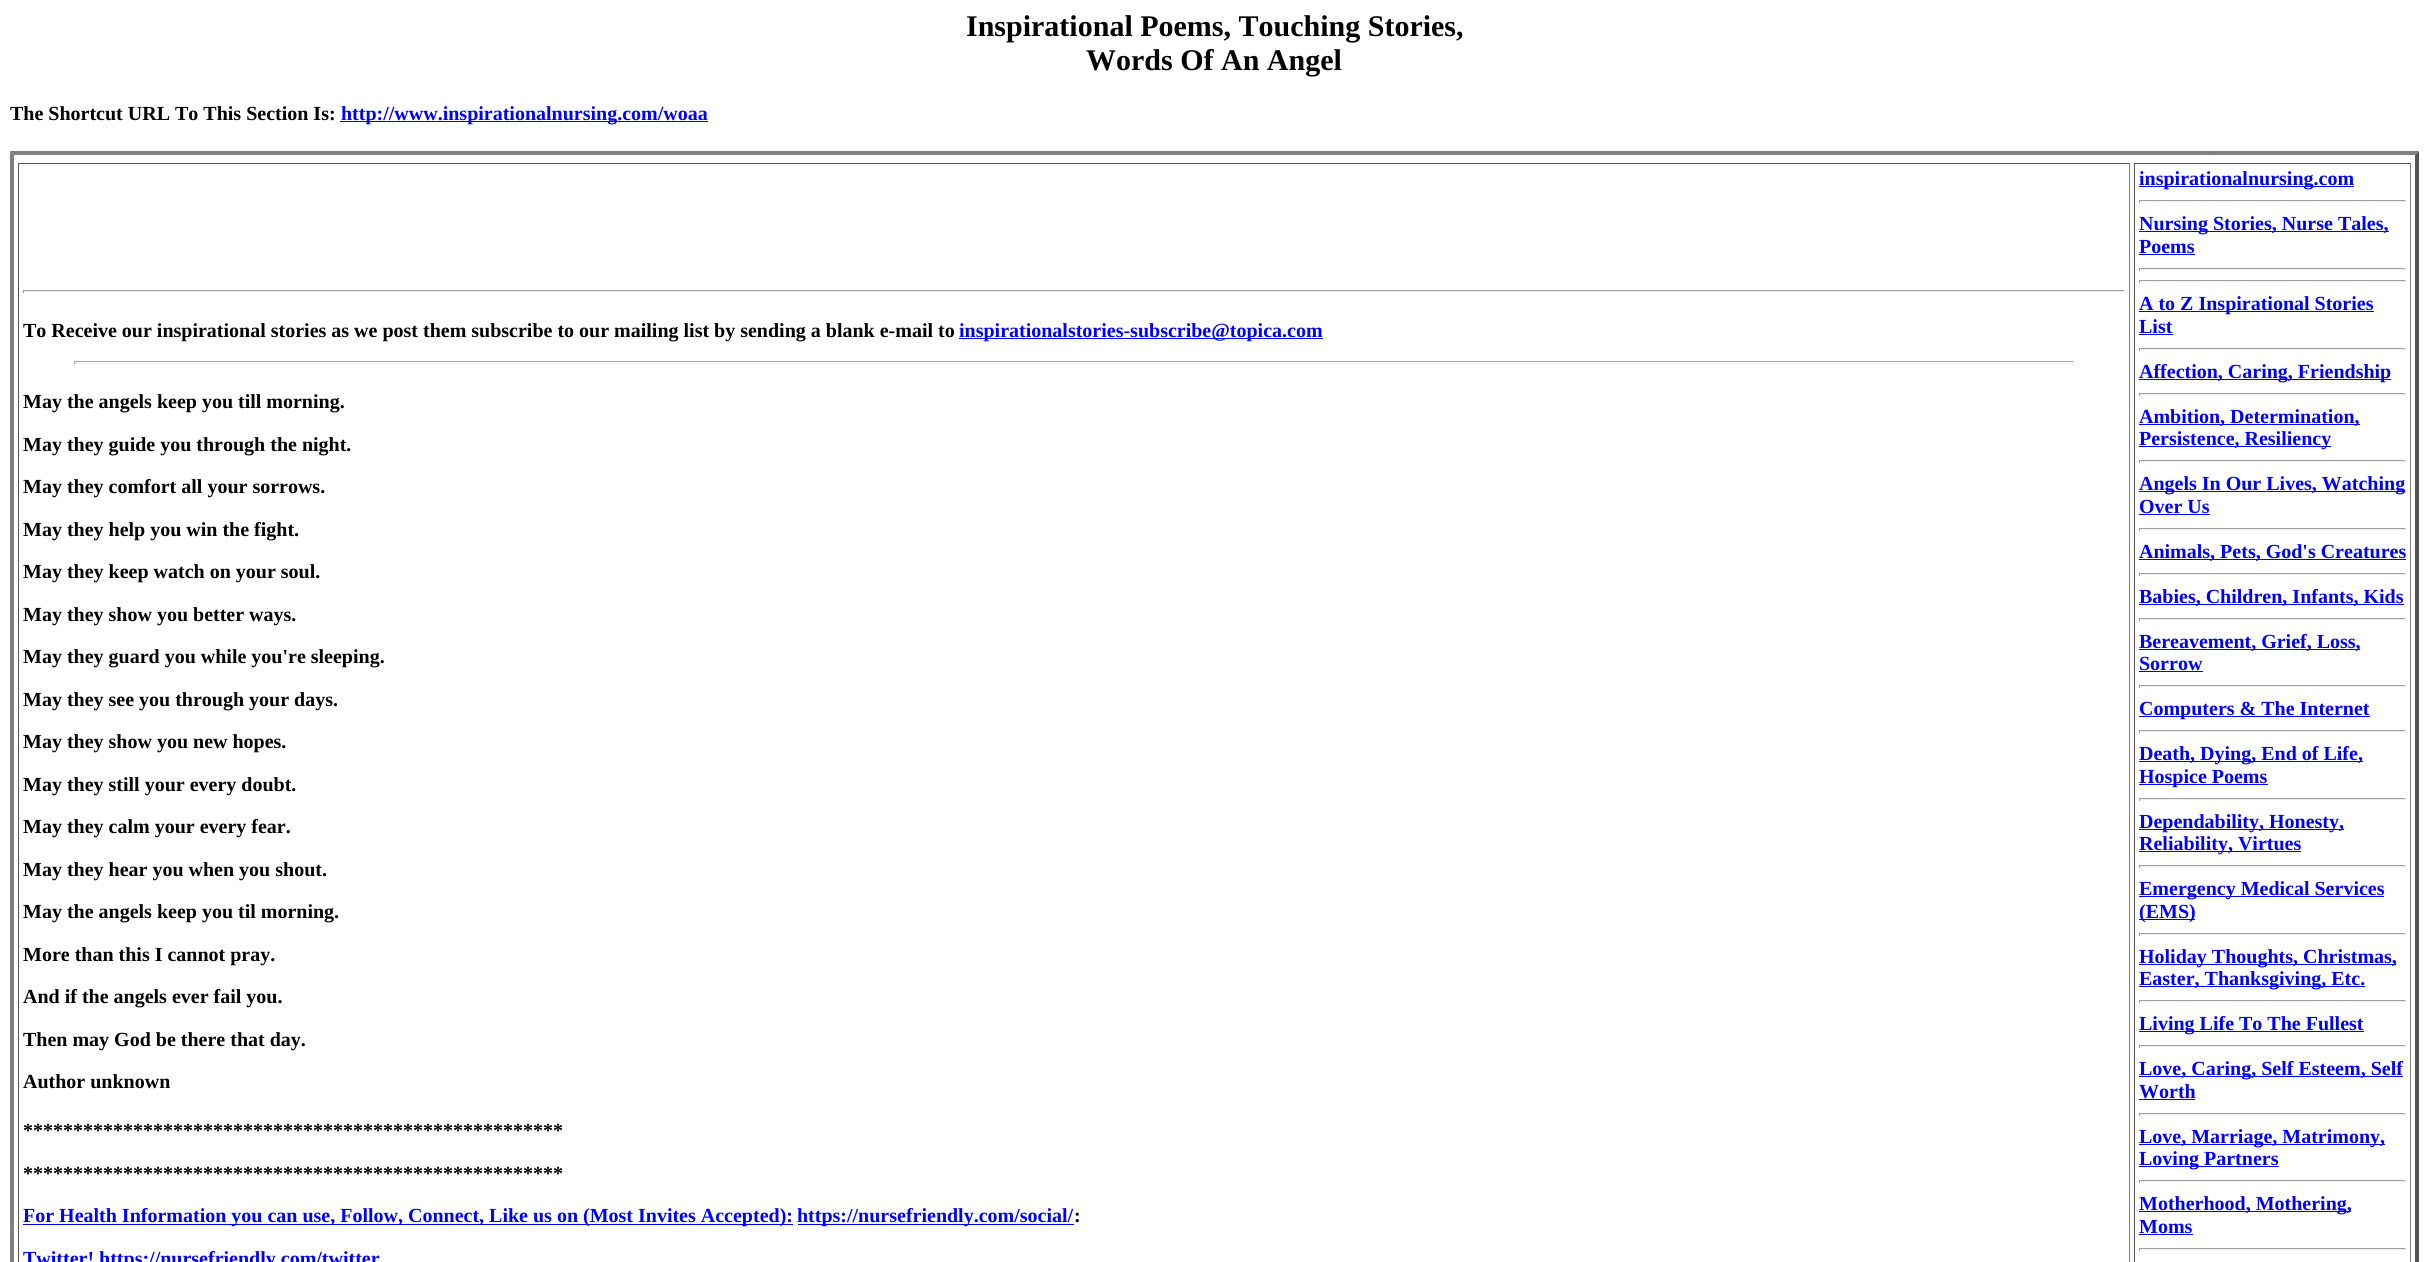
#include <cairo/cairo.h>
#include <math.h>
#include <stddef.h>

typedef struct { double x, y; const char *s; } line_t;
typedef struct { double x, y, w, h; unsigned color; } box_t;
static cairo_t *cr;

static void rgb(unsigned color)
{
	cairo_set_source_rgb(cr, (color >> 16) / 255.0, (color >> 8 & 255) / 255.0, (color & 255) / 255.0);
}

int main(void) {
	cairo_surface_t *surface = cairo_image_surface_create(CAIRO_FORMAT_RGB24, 2428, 1262);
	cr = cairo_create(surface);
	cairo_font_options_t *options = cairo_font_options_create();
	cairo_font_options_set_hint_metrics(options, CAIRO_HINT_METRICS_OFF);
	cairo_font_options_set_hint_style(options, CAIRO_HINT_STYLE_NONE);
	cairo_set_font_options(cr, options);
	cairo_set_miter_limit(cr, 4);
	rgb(0xffffff);
	cairo_paint(cr);
	rgb(0x0000ff);
	cairo_rectangle(cr, 340, 121, 368, 1);
	cairo_fill(cr);
	rgb(0x808080);
	cairo_new_path(cr);
	cairo_move_to(cr, 10, 151);
	cairo_line_to(cr, 2419, 151);
	cairo_line_to(cr, 2415, 155);
	cairo_line_to(cr, 14, 155);
	cairo_close_path(cr);
	cairo_fill(cr);
	rgb(0x555555);
	cairo_new_path(cr);
	cairo_move_to(cr, 2419, 151);
	cairo_line_to(cr, 2419, 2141);
	cairo_line_to(cr, 2415, 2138);
	cairo_line_to(cr, 2415, 155);
	cairo_close_path(cr);
	cairo_fill(cr);
	rgb(0x808080);
	cairo_new_path(cr);
	cairo_move_to(cr, 10, 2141);
	cairo_line_to(cr, 10, 151);
	cairo_line_to(cr, 14, 155);
	cairo_line_to(cr, 14, 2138);
	cairo_close_path(cr);
	cairo_fill(cr);
	{
		static const box_t items[] = {
			{18, 163, 2112, 1, 0x555555},
			{2129, 163, 1, 1099, 0x808080},
			{18, 163, 1, 1099, 0x555555},
			{23, 290, 2102, 1, 0x9f9f9f},
			{2124, 290, 1, 3, 0xeeeeee},
			{23, 291, 2102, 1, 0xeeeeee},
			{23, 290, 1, 3, 0x9f9f9f},
			{959, 338, 364, 1, 0x0000ff},
			{74, 361, 2000, 1, 0x9f9f9f},
			{2073, 361, 1, 3, 0xeeeeee},
			{74, 363, 2000, 1, 0xeeeeee},
			{74, 361, 1, 3, 0x9f9f9f},
			{23, 1224, 770, 1, 0x0000ff},
			{798, 1224, 276, 1, 0x0000ff},
			{2134, 163, 277, 1, 0x555555},
			{2410, 163, 1, 1099, 0x808080},
			{2134, 163, 1, 1099, 0x555555},
			{2139, 186, 215, 1, 0x0000ff},
			{2139, 200, 267, 1, 0x9f9f9f},
			{2405, 200, 1, 3, 0xeeeeee},
			{2139, 201, 267, 1, 0xeeeeee},
			{2139, 200, 1, 3, 0x9f9f9f},
			{2139, 231, 250, 1, 0x0000ff},
			{2139, 254, 56, 1, 0x0000ff},
			{2139, 268, 267, 1, 0x9f9f9f},
			{2405, 268, 1, 3, 0xeeeeee},
			{2139, 269, 267, 1, 0xeeeeee},
			{2139, 268, 1, 3, 0x9f9f9f},
			{2139, 280, 267, 1, 0x9f9f9f},
			{2405, 280, 1, 3, 0xeeeeee},
			{2139, 281, 267, 1, 0xeeeeee},
			{2139, 280, 1, 3, 0x9f9f9f},
			{2139, 311, 235, 1, 0x0000ff},
			{2139, 334, 34, 1, 0x0000ff},
			{2139, 348, 267, 1, 0x9f9f9f},
			{2405, 348, 1, 3, 0xeeeeee},
			{2139, 349, 267, 1, 0xeeeeee},
			{2139, 348, 1, 3, 0x9f9f9f},
			{2139, 379, 252, 1, 0x0000ff},
			{2139, 393, 267, 1, 0x9f9f9f},
			{2405, 393, 1, 3, 0xeeeeee},
			{2139, 394, 267, 1, 0xeeeeee},
			{2139, 393, 1, 3, 0x9f9f9f},
			{2139, 424, 221, 1, 0x0000ff},
			{2139, 446, 192, 1, 0x0000ff},
			{2139, 460, 267, 1, 0x9f9f9f},
			{2405, 460, 1, 3, 0xeeeeee},
			{2139, 461, 267, 1, 0xeeeeee},
			{2139, 460, 1, 3, 0x9f9f9f},
			{2139, 491, 266, 1, 0x0000ff},
			{2139, 514, 71, 1, 0x0000ff},
			{2139, 528, 267, 1, 0x9f9f9f},
			{2405, 528, 1, 3, 0xeeeeee},
			{2139, 529, 267, 1, 0xeeeeee},
			{2139, 528, 1, 3, 0x9f9f9f},
			{2139, 559, 267, 1, 0x0000ff},
			{2139, 573, 267, 1, 0x9f9f9f},
			{2405, 573, 1, 3, 0xeeeeee},
			{2139, 574, 267, 1, 0xeeeeee},
			{2139, 573, 1, 3, 0x9f9f9f},
			{2139, 604, 265, 1, 0x0000ff},
			{2139, 618, 267, 1, 0x9f9f9f},
			{2405, 618, 1, 3, 0xeeeeee},
			{2139, 619, 267, 1, 0xeeeeee},
			{2139, 618, 1, 3, 0x9f9f9f},
			{2139, 649, 221, 1, 0x0000ff},
			{2139, 671, 64, 1, 0x0000ff},
			{2139, 685, 267, 1, 0x9f9f9f},
			{2405, 685, 1, 3, 0xeeeeee},
			{2139, 686, 267, 1, 0xeeeeee},
			{2139, 685, 1, 3, 0x9f9f9f},
			{2139, 716, 231, 1, 0x0000ff},
			{2139, 730, 267, 1, 0x9f9f9f},
			{2405, 730, 1, 3, 0xeeeeee},
			{2139, 731, 267, 1, 0xeeeeee},
			{2139, 730, 1, 3, 0x9f9f9f},
			{2139, 761, 224, 1, 0x0000ff},
			{2139, 784, 129, 1, 0x0000ff},
			{2139, 798, 267, 1, 0x9f9f9f},
			{2405, 798, 1, 3, 0xeeeeee},
			{2139, 799, 267, 1, 0xeeeeee},
			{2139, 798, 1, 3, 0x9f9f9f},
			{2139, 829, 205, 1, 0x0000ff},
			{2139, 851, 162, 1, 0x0000ff},
			{2139, 865, 267, 1, 0x9f9f9f},
			{2405, 865, 1, 3, 0xeeeeee},
			{2139, 866, 267, 1, 0xeeeeee},
			{2139, 865, 1, 3, 0x9f9f9f},
			{2139, 896, 245, 1, 0x0000ff},
			{2139, 919, 56, 1, 0x0000ff},
			{2139, 933, 267, 1, 0x9f9f9f},
			{2405, 933, 1, 3, 0xeeeeee},
			{2139, 934, 267, 1, 0xeeeeee},
			{2139, 933, 1, 3, 0x9f9f9f},
			{2139, 964, 257, 1, 0x0000ff},
			{2139, 986, 226, 1, 0x0000ff},
			{2139, 1000, 267, 1, 0x9f9f9f},
			{2405, 1000, 1, 3, 0xeeeeee},
			{2139, 1001, 267, 1, 0xeeeeee},
			{2139, 1000, 1, 3, 0x9f9f9f},
			{2139, 1031, 225, 1, 0x0000ff},
			{2139, 1045, 267, 1, 0x9f9f9f},
			{2405, 1045, 1, 3, 0xeeeeee},
			{2139, 1046, 267, 1, 0xeeeeee},
			{2139, 1045, 1, 3, 0x9f9f9f},
			{2139, 1076, 264, 1, 0x0000ff},
			{2139, 1099, 56, 1, 0x0000ff},
			{2139, 1113, 267, 1, 0x9f9f9f},
			{2405, 1113, 1, 3, 0xeeeeee},
			{2139, 1114, 267, 1, 0xeeeeee},
			{2139, 1113, 1, 3, 0x9f9f9f},
			{2139, 1144, 246, 1, 0x0000ff},
			{2139, 1166, 140, 1, 0x0000ff},
			{2139, 1180, 267, 1, 0x9f9f9f},
			{2405, 1180, 1, 3, 0xeeeeee},
			{2139, 1181, 267, 1, 0xeeeeee},
			{2139, 1180, 1, 3, 0x9f9f9f},
			{2139, 1211, 212, 1, 0x0000ff},
			{2139, 1234, 54, 1, 0x0000ff},
			{2139, 1248, 267, 1, 0x9f9f9f},
			{2405, 1248, 1, 3, 0xeeeeee},
			{2139, 1249, 267, 1, 0xeeeeee},
			{2139, 1248, 1, 3, 0x9f9f9f},
		};
		for (size_t i = 0; i < sizeof items / sizeof *items; i++) {
			rgb(items[i].color);
			cairo_rectangle(cr, items[i].x, items[i].y, items[i].w, items[i].h);
			cairo_fill(cr);
		}
	}
	cairo_select_font_face(cr, "Liberation Serif", CAIRO_FONT_SLANT_NORMAL, CAIRO_FONT_WEIGHT_BOLD);
	cairo_set_font_size(cr, 30);
	rgb(0x000000);
	cairo_move_to(cr, 966, 36);
	cairo_show_text(cr, "Inspirational Poems, Touching Stories,");
	cairo_move_to(cr, 1086, 70);
	cairo_show_text(cr, "Words Of An Angel");
	cairo_set_font_size(cr, 20);
	cairo_move_to(cr, 10, 120);
	cairo_show_text(cr, "The Shortcut URL To This Section Is:");
	rgb(0x0000ff);
	cairo_move_to(cr, 341, 120);
	cairo_show_text(cr, "http://www.inspirationalnursing.com/woaa");
	rgb(0x000000);
	cairo_move_to(cr, 23, 337);
	cairo_show_text(cr, "To Receive our inspirational stories as we post them subscribe to our mailing list by sending a blank e-mail to");
	rgb(0x0000ff);
	cairo_move_to(cr, 959, 337);
	cairo_show_text(cr, "inspirationalstories-subscribe@topica.com");
	rgb(0x000000);
	{
		static const line_t items[] = {
			{23, 408, "May the angels keep you till morning."},
			{23, 451, "May they guide you through the night."},
			{23, 493, "May they comfort all your sorrows."},
			{23, 536, "May they help you win the fight."},
			{23, 578, "May they keep watch on your soul."},
			{23, 621, "May they show you better ways."},
			{23, 663, "May they guard you while you're sleeping."},
			{23, 706, "May they see you through your days."},
			{23, 748, "May they show you new hopes."},
			{23, 791, "May they still your every doubt."},
			{23, 833, "May they calm your every fear."},
			{23, 876, "May they hear you when you shout."},
			{23, 918, "May the angels keep you til morning."},
			{23, 961, "More than this I cannot pray."},
			{23, 1003, "And if the angels ever fail you."},
			{23, 1046, "Then may God be there that day."},
			{23, 1088, "Author unknown"},
			{23, 1137, "******************************************************"},
			{23, 1180, "******************************************************"},
		};
		for (size_t i = 0; i < sizeof items / sizeof *items; i++) {
			cairo_move_to(cr, items[i].x, items[i].y);
			cairo_show_text(cr, items[i].s);
		}
	}
	rgb(0x0000ff);
	cairo_move_to(cr, 23, 1222);
	cairo_show_text(cr, "For Health Information you can use, Follow, Connect, Like us on (Most Invites Accepted):");
	cairo_move_to(cr, 797, 1222);
	cairo_show_text(cr, "https://nursefriendly.com/social/");
	rgb(0x000000);
	cairo_move_to(cr, 1074, 1222);
	cairo_show_text(cr, ":");
	rgb(0x0000ff);
	{
		static const line_t items[] = {
			{23, 1265, "Twitter! https://nursefriendly.com/twitter"},
			{2139, 185, "inspirationalnursing.com"},
			{2139, 230, "Nursing Stories, Nurse Tales,"},
			{2139, 253, "Poems"},
			{2139, 310, "A to Z Inspirational Stories"},
			{2139, 333, "List"},
			{2139, 378, "Affection, Caring, Friendship"},
			{2139, 423, "Ambition, Determination,"},
			{2139, 445, "Persistence, Resiliency"},
			{2139, 490, "Angels In Our Lives, Watching"},
			{2139, 513, "Over Us"},
			{2139, 558, "Animals, Pets, God's Creatures"},
			{2139, 603, "Babies, Children, Infants, Kids"},
			{2139, 648, "Bereavement, Grief, Loss,"},
			{2139, 670, "Sorrow"},
			{2139, 715, "Computers & The Internet"},
			{2139, 760, "Death, Dying, End of Life,"},
			{2139, 783, "Hospice Poems"},
			{2139, 828, "Dependability, Honesty,"},
			{2139, 850, "Reliability, Virtues"},
			{2139, 895, "Emergency Medical Services"},
			{2139, 918, "(EMS)"},
			{2139, 963, "Holiday Thoughts, Christmas,"},
			{2139, 985, "Easter, Thanksgiving, Etc."},
			{2139, 1030, "Living Life To The Fullest"},
			{2139, 1075, "Love, Caring, Self Esteem, Self"},
			{2139, 1098, "Worth"},
			{2139, 1143, "Love, Marriage, Matrimony,"},
			{2139, 1165, "Loving Partners"},
			{2139, 1210, "Motherhood, Mothering,"},
			{2139, 1233, "Moms"},
		};
		for (size_t i = 0; i < sizeof items / sizeof *items; i++) {
			cairo_move_to(cr, items[i].x, items[i].y);
			cairo_show_text(cr, items[i].s);
		}
	}
	cairo_surface_write_to_png(surface, "page.png");
	cairo_font_options_destroy(options);
	cairo_destroy(cr);
	cairo_surface_destroy(surface);
	return 0;
}
